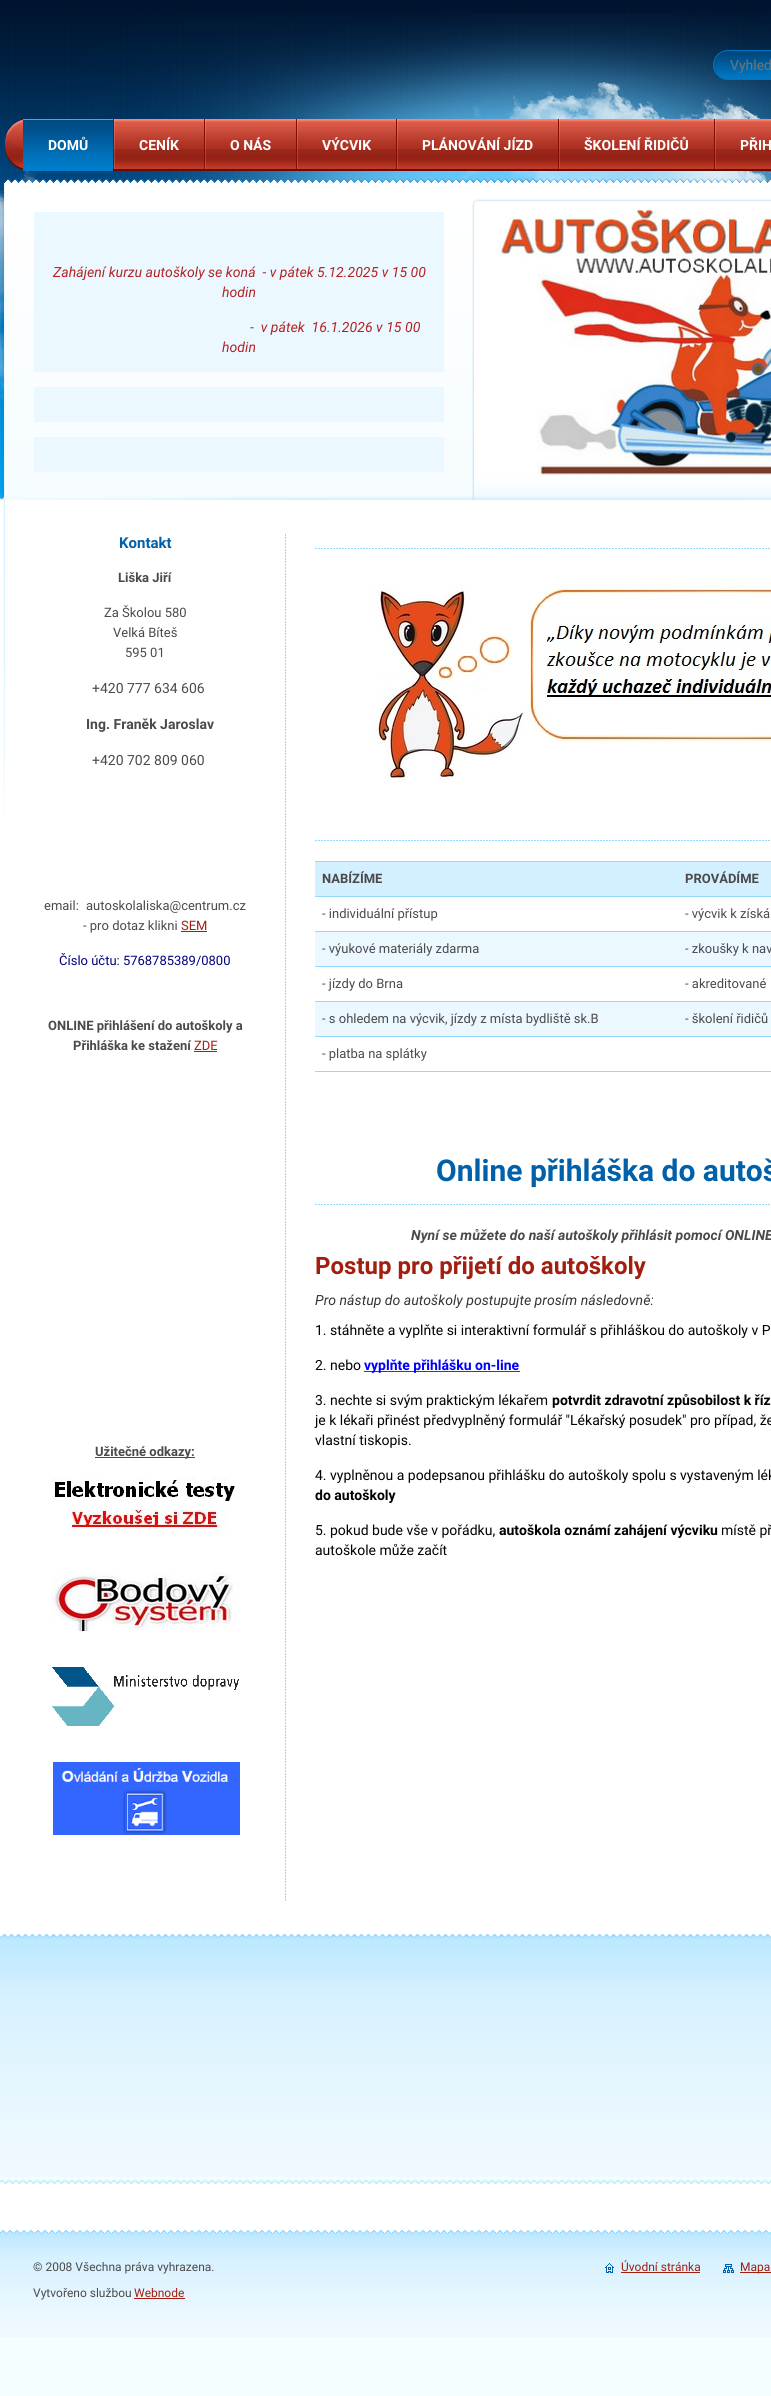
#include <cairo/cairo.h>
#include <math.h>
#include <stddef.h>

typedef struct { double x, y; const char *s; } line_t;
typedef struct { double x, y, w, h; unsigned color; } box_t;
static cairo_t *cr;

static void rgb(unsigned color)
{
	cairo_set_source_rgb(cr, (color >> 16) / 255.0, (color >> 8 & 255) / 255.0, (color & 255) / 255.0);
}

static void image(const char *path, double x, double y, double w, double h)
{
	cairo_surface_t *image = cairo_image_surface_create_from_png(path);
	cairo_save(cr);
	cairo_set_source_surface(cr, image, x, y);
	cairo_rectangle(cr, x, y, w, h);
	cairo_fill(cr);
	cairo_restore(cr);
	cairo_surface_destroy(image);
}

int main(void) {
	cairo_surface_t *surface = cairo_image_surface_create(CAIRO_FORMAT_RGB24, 771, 2396);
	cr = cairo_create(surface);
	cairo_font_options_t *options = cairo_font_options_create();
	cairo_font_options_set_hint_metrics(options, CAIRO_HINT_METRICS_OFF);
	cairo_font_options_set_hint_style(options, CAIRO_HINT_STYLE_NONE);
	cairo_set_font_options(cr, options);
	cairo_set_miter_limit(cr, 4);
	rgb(0xf4fdff);
	cairo_paint(cr);
	rgb(0xffffff);
	cairo_rectangle(cr, 0, 499, 771, 1731);
	cairo_fill(cr);
	image("img/1.png", 0, 0, 771, 499);
	image("img/2.png", 0, 13, 771, 487);
	image("img/3.png", 713, 50, 58, 30);
	image("img/4.png", 5, 119, 766, 52);
	image("img/5.png", 23, 119, 90, 52);
	image("img/6.png", 113, 119, 2, 50);
	image("img/6.png", 204, 119, 2, 50);
	image("img/6.png", 296, 119, 2, 50);
	image("img/6.png", 396, 119, 2, 50);
	image("img/6.png", 558, 119, 2, 50);
	image("img/6.png", 714, 119, 2, 50);
	image("img/7.png", 3, 500, 2, 319);
	image("img/8.png", 4, 180, 767, 320);
	{
		static const box_t items[] = {
			{34, 212, 410, 160, 0xebf8ff},
			{34, 387, 410, 35, 0xebf8ff},
			{34, 437, 410, 35, 0xebf8ff},
		};
		for (size_t i = 0; i < sizeof items / sizeof *items; i++) {
			rgb(items[i].color);
			cairo_rectangle(cr, items[i].x, items[i].y, items[i].w, items[i].h);
			cairo_fill(cr);
		}
	}
	image("img/9.png", 497, 209, 274, 266);
	image("img/10.png", 285, 534, 1, 1367);
	{
		static const box_t items[] = {
			{181, 931, 26, 1, 0xa21e0f},
			{194, 1051, 23, 1, 0xa21e0f},
			{95, 1457, 100, 1, 0x4a4a4a},
		};
		for (size_t i = 0; i < sizeof items / sizeof *items; i++) {
			rgb(items[i].color);
			cairo_rectangle(cr, items[i].x, items[i].y, items[i].w, items[i].h);
			cairo_fill(cr);
		}
	}
	image("img/11.png", 52, 1477, 184, 59);
	image("img/12.png", 52, 1572, 187, 59);
	image("img/13.png", 52, 1667, 187, 59);
	image("img/14.png", 53, 1762, 187, 73);
	image("img/15.png", 315, 548, 455, 1);
	image("img/15.png", 315, 840, 455, 1);
	image("img/16.png", 371, 584, 400, 199);
	{
		static const box_t items[] = {
			{315, 862, 456, 34, 0xd2f0ff},
			{315, 861, 456, 1, 0x94daff},
			{315, 896, 456, 1, 0x94daff},
			{315, 931, 456, 1, 0x94daff},
			{315, 932, 456, 34, 0xebf8ff},
			{315, 966, 456, 1, 0x94daff},
			{315, 1001, 456, 1, 0x94daff},
			{315, 1002, 456, 34, 0xebf8ff},
			{315, 1036, 456, 1, 0x94daff},
			{315, 1071, 456, 1, 0x94daff},
		};
		for (size_t i = 0; i < sizeof items / sizeof *items; i++) {
			rgb(items[i].color);
			cairo_rectangle(cr, items[i].x, items[i].y, items[i].w, items[i].h);
			cairo_fill(cr);
		}
	}
	image("img/15.png", 315, 1204, 455, 1);
	rgb(0xa21e0f);
	cairo_rectangle(cr, 364, 1371, 156, 1);
	cairo_fill(cr);
	rgb(0xf4fdff);
	cairo_rectangle(cr, 0, 2177, 771, 2);
	cairo_fill(cr);
	image("img/17.png", 0, 1934, 771, 243);
	image("img/18.png", 0, 2179, 771, 5);
	image("img/19.png", 0, 2230, 771, 107);
	rgb(0xa21e0f);
	cairo_rectangle(cr, 134, 2298, 51, 1);
	cairo_fill(cr);
	image("img/20.png", 605, 2263, 9, 10);
	cairo_rectangle(cr, 621, 2272, 79, 1);
	cairo_fill(cr);
	image("img/21.png", 723, 2264, 11, 9);
	cairo_rectangle(cr, 740, 2272, 31, 1);
	cairo_fill(cr);
	cairo_select_font_face(cr, "Roboto", CAIRO_FONT_SLANT_NORMAL, CAIRO_FONT_WEIGHT_NORMAL);
	cairo_set_font_size(cr, 14);
	rgb(0x757575);
	cairo_move_to(cr, 730, 70);
	cairo_show_text(cr, "Vyhled");
	cairo_select_font_face(cr, "Roboto", CAIRO_FONT_SLANT_NORMAL, CAIRO_FONT_WEIGHT_BOLD);
	rgb(0xffffff);
	{
		static const line_t items[] = {
			{48, 150, "DOMŮ"},
			{139, 150, "CENÍK"},
			{230, 150, "O NÁS"},
			{322, 150, "VÝCVIK"},
			{422, 150, "PLÁNOVÁNÍ JÍZD"},
			{584, 150, "ŠKOLENÍ ŘIDIČŮ"},
			{740, 150, "PŘIH"},
		};
		for (size_t i = 0; i < sizeof items / sizeof *items; i++) {
			cairo_move_to(cr, items[i].x, items[i].y);
			cairo_show_text(cr, items[i].s);
		}
	}
	cairo_select_font_face(cr, "Roboto", CAIRO_FONT_SLANT_ITALIC, CAIRO_FONT_WEIGHT_NORMAL);
	rgb(0xb22222);
	{
		static const line_t items[] = {
			{53, 277, "Zahájení kurzu autoškoly se koná  - v pátek 5.12.2025 v 15 00"},
			{222, 297, "hodin"},
			{250, 332, "-  v pátek  16.1.2026 v 15 00"},
			{222, 352, "hodin"},
		};
		for (size_t i = 0; i < sizeof items / sizeof *items; i++) {
			cairo_move_to(cr, items[i].x, items[i].y);
			cairo_show_text(cr, items[i].s);
		}
	}
	cairo_select_font_face(cr, "Roboto", CAIRO_FONT_SLANT_NORMAL, CAIRO_FONT_WEIGHT_BOLD);
	cairo_set_font_size(cr, 15);
	rgb(0x0060a9);
	cairo_move_to(cr, 119, 548);
	cairo_show_text(cr, "Kontakt");
	cairo_set_font_size(cr, 13);
	rgb(0x4a4a4a);
	cairo_move_to(cr, 118, 582);
	cairo_show_text(cr, "Liška Jiří");
	cairo_select_font_face(cr, "Roboto", CAIRO_FONT_SLANT_NORMAL, CAIRO_FONT_WEIGHT_NORMAL);
	{
		static const line_t items[] = {
			{104, 617, "Za Školou 580"},
			{113, 637, "Velká Bíteš"},
			{125, 657, "595 01"},
		};
		for (size_t i = 0; i < sizeof items / sizeof *items; i++) {
			cairo_move_to(cr, items[i].x, items[i].y);
			cairo_show_text(cr, items[i].s);
		}
	}
	cairo_set_font_size(cr, 14);
	cairo_move_to(cr, 92, 693);
	cairo_show_text(cr, "+420 777 634 606");
	cairo_select_font_face(cr, "Roboto", CAIRO_FONT_SLANT_NORMAL, CAIRO_FONT_WEIGHT_BOLD);
	cairo_move_to(cr, 86, 729);
	cairo_show_text(cr, "Ing. Franěk Jaroslav");
	cairo_select_font_face(cr, "Roboto", CAIRO_FONT_SLANT_NORMAL, CAIRO_FONT_WEIGHT_NORMAL);
	cairo_move_to(cr, 92, 765);
	cairo_show_text(cr, "+420 702 809 060");
	cairo_set_font_size(cr, 13);
	{
		static const line_t items[] = {
			{44, 910, "email:"},
			{86, 910, "autoskolaliska@centrum.cz"},
			{83, 930, "- pro dotaz klikni"},
		};
		for (size_t i = 0; i < sizeof items / sizeof *items; i++) {
			cairo_move_to(cr, items[i].x, items[i].y);
			cairo_show_text(cr, items[i].s);
		}
	}
	rgb(0xa21e0f);
	cairo_move_to(cr, 181, 930);
	cairo_show_text(cr, "SEM");
	rgb(0x000080);
	cairo_move_to(cr, 59, 965);
	cairo_show_text(cr, "Číslo účtu: 5768785389/0800");
	cairo_select_font_face(cr, "Roboto", CAIRO_FONT_SLANT_NORMAL, CAIRO_FONT_WEIGHT_BOLD);
	rgb(0x4a4a4a);
	cairo_move_to(cr, 48, 1030);
	cairo_show_text(cr, "ONLINE přihlášení do autoškoly a");
	cairo_move_to(cr, 73, 1050);
	cairo_show_text(cr, "Přihláška ke stažení");
	cairo_select_font_face(cr, "Roboto", CAIRO_FONT_SLANT_NORMAL, CAIRO_FONT_WEIGHT_NORMAL);
	rgb(0xa21e0f);
	cairo_move_to(cr, 194, 1050);
	cairo_show_text(cr, "ZDE");
	cairo_select_font_face(cr, "Roboto", CAIRO_FONT_SLANT_NORMAL, CAIRO_FONT_WEIGHT_BOLD);
	rgb(0x4a4a4a);
	{
		static const line_t items[] = {
			{95, 1456, "Užitečné odkazy:"},
			{322, 883, "NABÍZÍME"},
			{685, 883, "PROVÁDÍME"},
		};
		for (size_t i = 0; i < sizeof items / sizeof *items; i++) {
			cairo_move_to(cr, items[i].x, items[i].y);
			cairo_show_text(cr, items[i].s);
		}
	}
	cairo_select_font_face(cr, "Roboto", CAIRO_FONT_SLANT_NORMAL, CAIRO_FONT_WEIGHT_NORMAL);
	{
		static const line_t items[] = {
			{322, 918, "- individuální přístup"},
			{685, 918, "- výcvik k získá"},
			{322, 953, "- výukové materiály zdarma"},
			{685, 953, "- zkoušky k nav"},
			{322, 988, "- jízdy do Brna"},
			{685, 988, "- akreditované"},
			{322, 1023, "- s ohledem na výcvik, jízdy z místa bydliště sk.B"},
			{685, 1023, "- školení řidičů"},
			{322, 1058, "- platba na splátky"},
		};
		for (size_t i = 0; i < sizeof items / sizeof *items; i++) {
			cairo_move_to(cr, items[i].x, items[i].y);
			cairo_show_text(cr, items[i].s);
		}
	}
	cairo_select_font_face(cr, "Roboto", CAIRO_FONT_SLANT_NORMAL, CAIRO_FONT_WEIGHT_BOLD);
	cairo_set_font_size(cr, 30);
	rgb(0x0060a9);
	cairo_move_to(cr, 436, 1181);
	cairo_show_text(cr, "Online přihláška do autoš");
	cairo_select_font_face(cr, "Roboto", CAIRO_FONT_SLANT_ITALIC, CAIRO_FONT_WEIGHT_BOLD);
	cairo_set_font_size(cr, 14);
	rgb(0x4a4a4a);
	cairo_move_to(cr, 411, 1240);
	cairo_show_text(cr, "Nyní se můžete do naší autoškoly přihlásit pomocí ONLINE");
	cairo_select_font_face(cr, "Roboto", CAIRO_FONT_SLANT_NORMAL, CAIRO_FONT_WEIGHT_BOLD);
	cairo_set_font_size(cr, 24);
	rgb(0xa21e0f);
	cairo_move_to(cr, 315, 1274);
	cairo_show_text(cr, "Postup pro přijetí do autoškoly");
	cairo_select_font_face(cr, "Roboto", CAIRO_FONT_SLANT_ITALIC, CAIRO_FONT_WEIGHT_NORMAL);
	cairo_set_font_size(cr, 14);
	rgb(0x333333);
	cairo_move_to(cr, 315, 1305);
	cairo_show_text(cr, "Pro nástup do autoškoly postupujte prosím následovně:");
	cairo_select_font_face(cr, "Roboto", CAIRO_FONT_SLANT_NORMAL, CAIRO_FONT_WEIGHT_NORMAL);
	rgb(0x000000);
	cairo_move_to(cr, 315, 1335);
	cairo_show_text(cr, "1. stáhněte a vyplňte si interaktivní formulář s přihláškou do autoškoly v P");
	cairo_move_to(cr, 315, 1370);
	cairo_show_text(cr, "2. nebo");
	cairo_select_font_face(cr, "Roboto", CAIRO_FONT_SLANT_NORMAL, CAIRO_FONT_WEIGHT_BOLD);
	rgb(0x0000ff);
	cairo_move_to(cr, 364, 1370);
	cairo_show_text(cr, "vyplňte přihlášku on-line");
	cairo_select_font_face(cr, "Roboto", CAIRO_FONT_SLANT_NORMAL, CAIRO_FONT_WEIGHT_NORMAL);
	rgb(0x000000);
	cairo_move_to(cr, 315, 1405);
	cairo_show_text(cr, "3. nechte si svým praktickým lékařem");
	cairo_select_font_face(cr, "Roboto", CAIRO_FONT_SLANT_NORMAL, CAIRO_FONT_WEIGHT_BOLD);
	cairo_move_to(cr, 552, 1405);
	cairo_show_text(cr, "potvrdit zdravotní způsobilost k říz");
	cairo_select_font_face(cr, "Roboto", CAIRO_FONT_SLANT_NORMAL, CAIRO_FONT_WEIGHT_NORMAL);
	{
		static const line_t items[] = {
			{315, 1425, "je k lékaři přinést předvyplněný formulář \"Lékařský posudek\" pro případ, že"},
			{315, 1445, "vlastní tiskopis."},
			{315, 1480, "4. vyplněnou a podepsanou přihlášku do autoškoly spolu s vystaveným lék"},
		};
		for (size_t i = 0; i < sizeof items / sizeof *items; i++) {
			cairo_move_to(cr, items[i].x, items[i].y);
			cairo_show_text(cr, items[i].s);
		}
	}
	cairo_select_font_face(cr, "Roboto", CAIRO_FONT_SLANT_NORMAL, CAIRO_FONT_WEIGHT_BOLD);
	cairo_move_to(cr, 315, 1500);
	cairo_show_text(cr, "do autoškoly");
	cairo_select_font_face(cr, "Roboto", CAIRO_FONT_SLANT_NORMAL, CAIRO_FONT_WEIGHT_NORMAL);
	cairo_move_to(cr, 315, 1535);
	cairo_show_text(cr, "5. pokud bude vše v pořádku,");
	cairo_select_font_face(cr, "Roboto", CAIRO_FONT_SLANT_NORMAL, CAIRO_FONT_WEIGHT_BOLD);
	cairo_move_to(cr, 499, 1535);
	cairo_show_text(cr, "autoškola oznámí zahájení výcviku");
	cairo_select_font_face(cr, "Roboto", CAIRO_FONT_SLANT_NORMAL, CAIRO_FONT_WEIGHT_NORMAL);
	cairo_move_to(cr, 721, 1535);
	cairo_show_text(cr, "místě př");
	cairo_move_to(cr, 315, 1555);
	cairo_show_text(cr, "autoškole může začít");
	cairo_set_font_size(cr, 12);
	rgb(0x4a4a4a);
	cairo_move_to(cr, 33, 2271);
	cairo_show_text(cr, "© 2008 Všechna práva vyhrazena.");
	cairo_move_to(cr, 33, 2297);
	cairo_show_text(cr, "Vytvořeno službou");
	rgb(0xa21e0f);
	{
		static const line_t items[] = {
			{134, 2297, "Webnode"},
			{621, 2271, "Úvodní stránka"},
			{740, 2271, "Mapa"},
		};
		for (size_t i = 0; i < sizeof items / sizeof *items; i++) {
			cairo_move_to(cr, items[i].x, items[i].y);
			cairo_show_text(cr, items[i].s);
		}
	}
	cairo_surface_write_to_png(surface, "page.png");
	cairo_font_options_destroy(options);
	cairo_destroy(cr);
	cairo_surface_destroy(surface);
	return 0;
}
